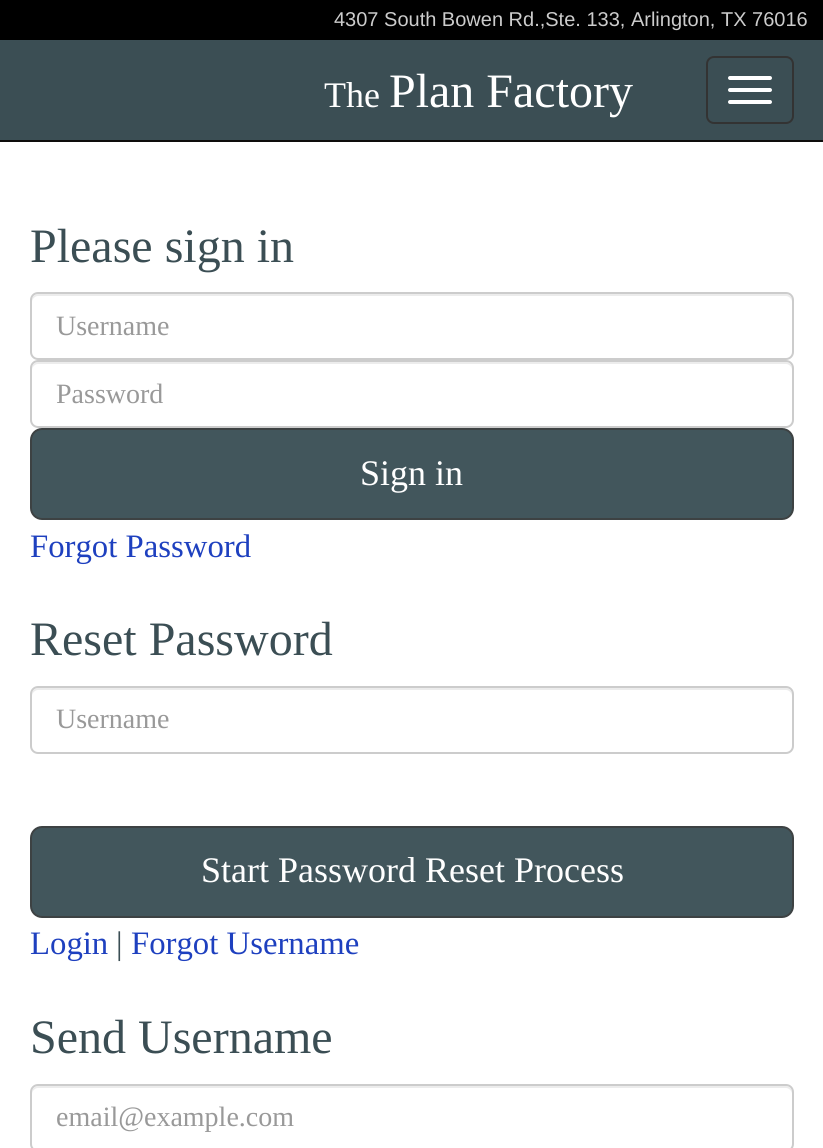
#include <cairo/cairo.h>
#include <math.h>
#include <stddef.h>

typedef struct { double x, y, w, h; unsigned color; } box_t;
static cairo_t *cr;

static void rgb(unsigned color)
{
	cairo_set_source_rgb(cr, (color >> 16) / 255.0, (color >> 8 & 255) / 255.0, (color & 255) / 255.0);
}

static void rrect(double x, double y, double w, double h, double r)
{
	cairo_new_sub_path(cr);
	cairo_arc(cr, x + w - r, y + h - r, r, 0, M_PI / 2);
	cairo_arc(cr, x + r, y + h - r, r, M_PI / 2, M_PI);
	cairo_arc(cr, x + r, y + r, r, M_PI, 1.5 * M_PI);
	cairo_arc(cr, x + w - r, y + r, r, 1.5 * M_PI, 2 * M_PI);
	cairo_close_path(cr);
}

int main(void) {
	cairo_surface_t *surface = cairo_image_surface_create(CAIRO_FORMAT_RGB24, 823, 1148);
	cr = cairo_create(surface);
	cairo_font_options_t *options = cairo_font_options_create();
	cairo_font_options_set_hint_metrics(options, CAIRO_HINT_METRICS_OFF);
	cairo_font_options_set_hint_style(options, CAIRO_HINT_STYLE_NONE);
	cairo_set_font_options(cr, options);
	cairo_set_miter_limit(cr, 4);
	rgb(0xffffff);
	cairo_paint(cr);
	{
		static const box_t items[] = {
			{0, 40, 823, 100, 0x3b4e54},
			{0, 140, 823, 2, 0x0e0d0c},
			{0, 0, 823, 40, 0x000000},
		};
		for (size_t i = 0; i < sizeof items / sizeof *items; i++) {
			rgb(items[i].color);
			cairo_rectangle(cr, items[i].x, items[i].y, items[i].w, items[i].h);
			cairo_fill(cr);
		}
	}
	rrect(707, 57, 86, 66, 7);
	rgb(0x333333);
	cairo_stroke(cr);
	rgb(0xffffff);
	rrect(728, 76, 44, 4, 2);
	cairo_fill(cr);
	rrect(728, 88, 44, 4, 2);
	cairo_fill(cr);
	rrect(728, 100, 44, 4, 2);
	cairo_fill(cr);
	rgb(0xececec);
	cairo_new_path(cr);
	cairo_move_to(cr, 38, 296);
	cairo_line_to(cr, 786, 296);
	cairo_curve_to(cr, 789, 296, 792, 299, 792, 302);
	cairo_line_to(cr, 792, 300);
	cairo_curve_to(cr, 792, 297, 789, 294, 786, 294);
	cairo_line_to(cr, 38, 294);
	cairo_curve_to(cr, 35, 294, 32, 297, 32, 300);
	cairo_line_to(cr, 32, 302);
	cairo_curve_to(cr, 32, 299, 35, 296, 38, 296);
	cairo_close_path(cr);
	cairo_fill(cr);
	rrect(31, 293, 762, 66, 7);
	rgb(0xcccccc);
	cairo_stroke(cr);
	rgb(0xececec);
	cairo_new_path(cr);
	cairo_move_to(cr, 38, 364);
	cairo_line_to(cr, 786, 364);
	cairo_curve_to(cr, 789, 364, 792, 367, 792, 370);
	cairo_line_to(cr, 792, 368);
	cairo_curve_to(cr, 792, 365, 789, 362, 786, 362);
	cairo_line_to(cr, 38, 362);
	cairo_curve_to(cr, 35, 362, 32, 365, 32, 368);
	cairo_line_to(cr, 32, 370);
	cairo_curve_to(cr, 32, 367, 35, 364, 38, 364);
	cairo_close_path(cr);
	cairo_fill(cr);
	rrect(31, 361, 762, 66, 7);
	rgb(0xcccccc);
	cairo_stroke(cr);
	rgb(0x42565c);
	rrect(31, 429, 762, 90, 11);
	cairo_fill_preserve(cr);
	rgb(0x3d4243);
	cairo_stroke(cr);
	rgb(0xececec);
	cairo_new_path(cr);
	cairo_move_to(cr, 38, 690);
	cairo_line_to(cr, 786, 690);
	cairo_curve_to(cr, 789, 690, 792, 693, 792, 696);
	cairo_line_to(cr, 792, 694);
	cairo_curve_to(cr, 792, 691, 789, 688, 786, 688);
	cairo_line_to(cr, 38, 688);
	cairo_curve_to(cr, 35, 688, 32, 691, 32, 694);
	cairo_line_to(cr, 32, 696);
	cairo_curve_to(cr, 32, 693, 35, 690, 38, 690);
	cairo_close_path(cr);
	cairo_fill(cr);
	rrect(31, 687, 762, 66, 7);
	rgb(0xcccccc);
	cairo_stroke(cr);
	rgb(0x42565c);
	rrect(31, 827, 762, 90, 11);
	cairo_fill_preserve(cr);
	rgb(0x3d4243);
	cairo_stroke(cr);
	rgb(0xececec);
	cairo_new_path(cr);
	cairo_move_to(cr, 38, 1088);
	cairo_line_to(cr, 786, 1088);
	cairo_curve_to(cr, 789, 1088, 792, 1091, 792, 1094);
	cairo_line_to(cr, 792, 1092);
	cairo_curve_to(cr, 792, 1089, 789, 1086, 786, 1086);
	cairo_line_to(cr, 38, 1086);
	cairo_curve_to(cr, 35, 1086, 32, 1089, 32, 1092);
	cairo_line_to(cr, 32, 1094);
	cairo_curve_to(cr, 32, 1091, 35, 1088, 38, 1088);
	cairo_close_path(cr);
	cairo_fill(cr);
	rrect(31, 1085, 762, 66, 7);
	rgb(0xcccccc);
	cairo_stroke(cr);
	cairo_select_font_face(cr, "Liberation Sans", CAIRO_FONT_SLANT_NORMAL, CAIRO_FONT_WEIGHT_NORMAL);
	cairo_set_font_size(cr, 20);
	cairo_move_to(cr, 334, 26);
	cairo_show_text(cr, "4307 South Bowen Rd.,Ste. 133, Arlington, TX 76016");
	cairo_select_font_face(cr, "Liberation Serif", CAIRO_FONT_SLANT_NORMAL, CAIRO_FONT_WEIGHT_NORMAL);
	cairo_set_font_size(cr, 36);
	rgb(0xffffff);
	cairo_move_to(cr, 324, 107);
	cairo_show_text(cr, "The");
	cairo_set_font_size(cr, 48);
	cairo_move_to(cr, 389, 107);
	cairo_show_text(cr, "Plan Factory");
	rgb(0x3b4e54);
	cairo_move_to(cr, 30, 262);
	cairo_show_text(cr, "Please sign in");
	cairo_set_font_size(cr, 28);
	rgb(0x999999);
	cairo_move_to(cr, 56, 335);
	cairo_show_text(cr, "Username");
	cairo_move_to(cr, 56, 403);
	cairo_show_text(cr, "Password");
	cairo_set_font_size(cr, 36);
	rgb(0xffffff);
	cairo_move_to(cr, 360, 485);
	cairo_show_text(cr, "Sign in");
	cairo_set_font_size(cr, 32.75);
	rgb(0x1e40bf);
	cairo_move_to(cr, 30, 557);
	cairo_show_text(cr, "Forgot Password");
	cairo_set_font_size(cr, 48);
	rgb(0x3b4e54);
	cairo_move_to(cr, 30, 655);
	cairo_show_text(cr, "Reset Password");
	cairo_set_font_size(cr, 28);
	rgb(0x999999);
	cairo_move_to(cr, 56, 728);
	cairo_show_text(cr, "Username");
	cairo_set_font_size(cr, 36);
	rgb(0xffffff);
	cairo_move_to(cr, 201, 882);
	cairo_show_text(cr, "Start Password Reset Process");
	cairo_set_font_size(cr, 32.75);
	rgb(0x1e40bf);
	cairo_move_to(cr, 30, 954);
	cairo_show_text(cr, "Login");
	rgb(0x3b4e54);
	cairo_move_to(cr, 116, 954);
	cairo_show_text(cr, "|");
	rgb(0x1e40bf);
	cairo_move_to(cr, 131, 954);
	cairo_show_text(cr, "Forgot Username");
	cairo_set_font_size(cr, 48);
	rgb(0x3b4e54);
	cairo_move_to(cr, 30, 1053);
	cairo_show_text(cr, "Send Username");
	cairo_set_font_size(cr, 28);
	rgb(0x999999);
	cairo_move_to(cr, 56, 1126);
	cairo_show_text(cr, "email@example.com");
	cairo_surface_write_to_png(surface, "page.png");
	cairo_font_options_destroy(options);
	cairo_destroy(cr);
	cairo_surface_destroy(surface);
	return 0;
}
